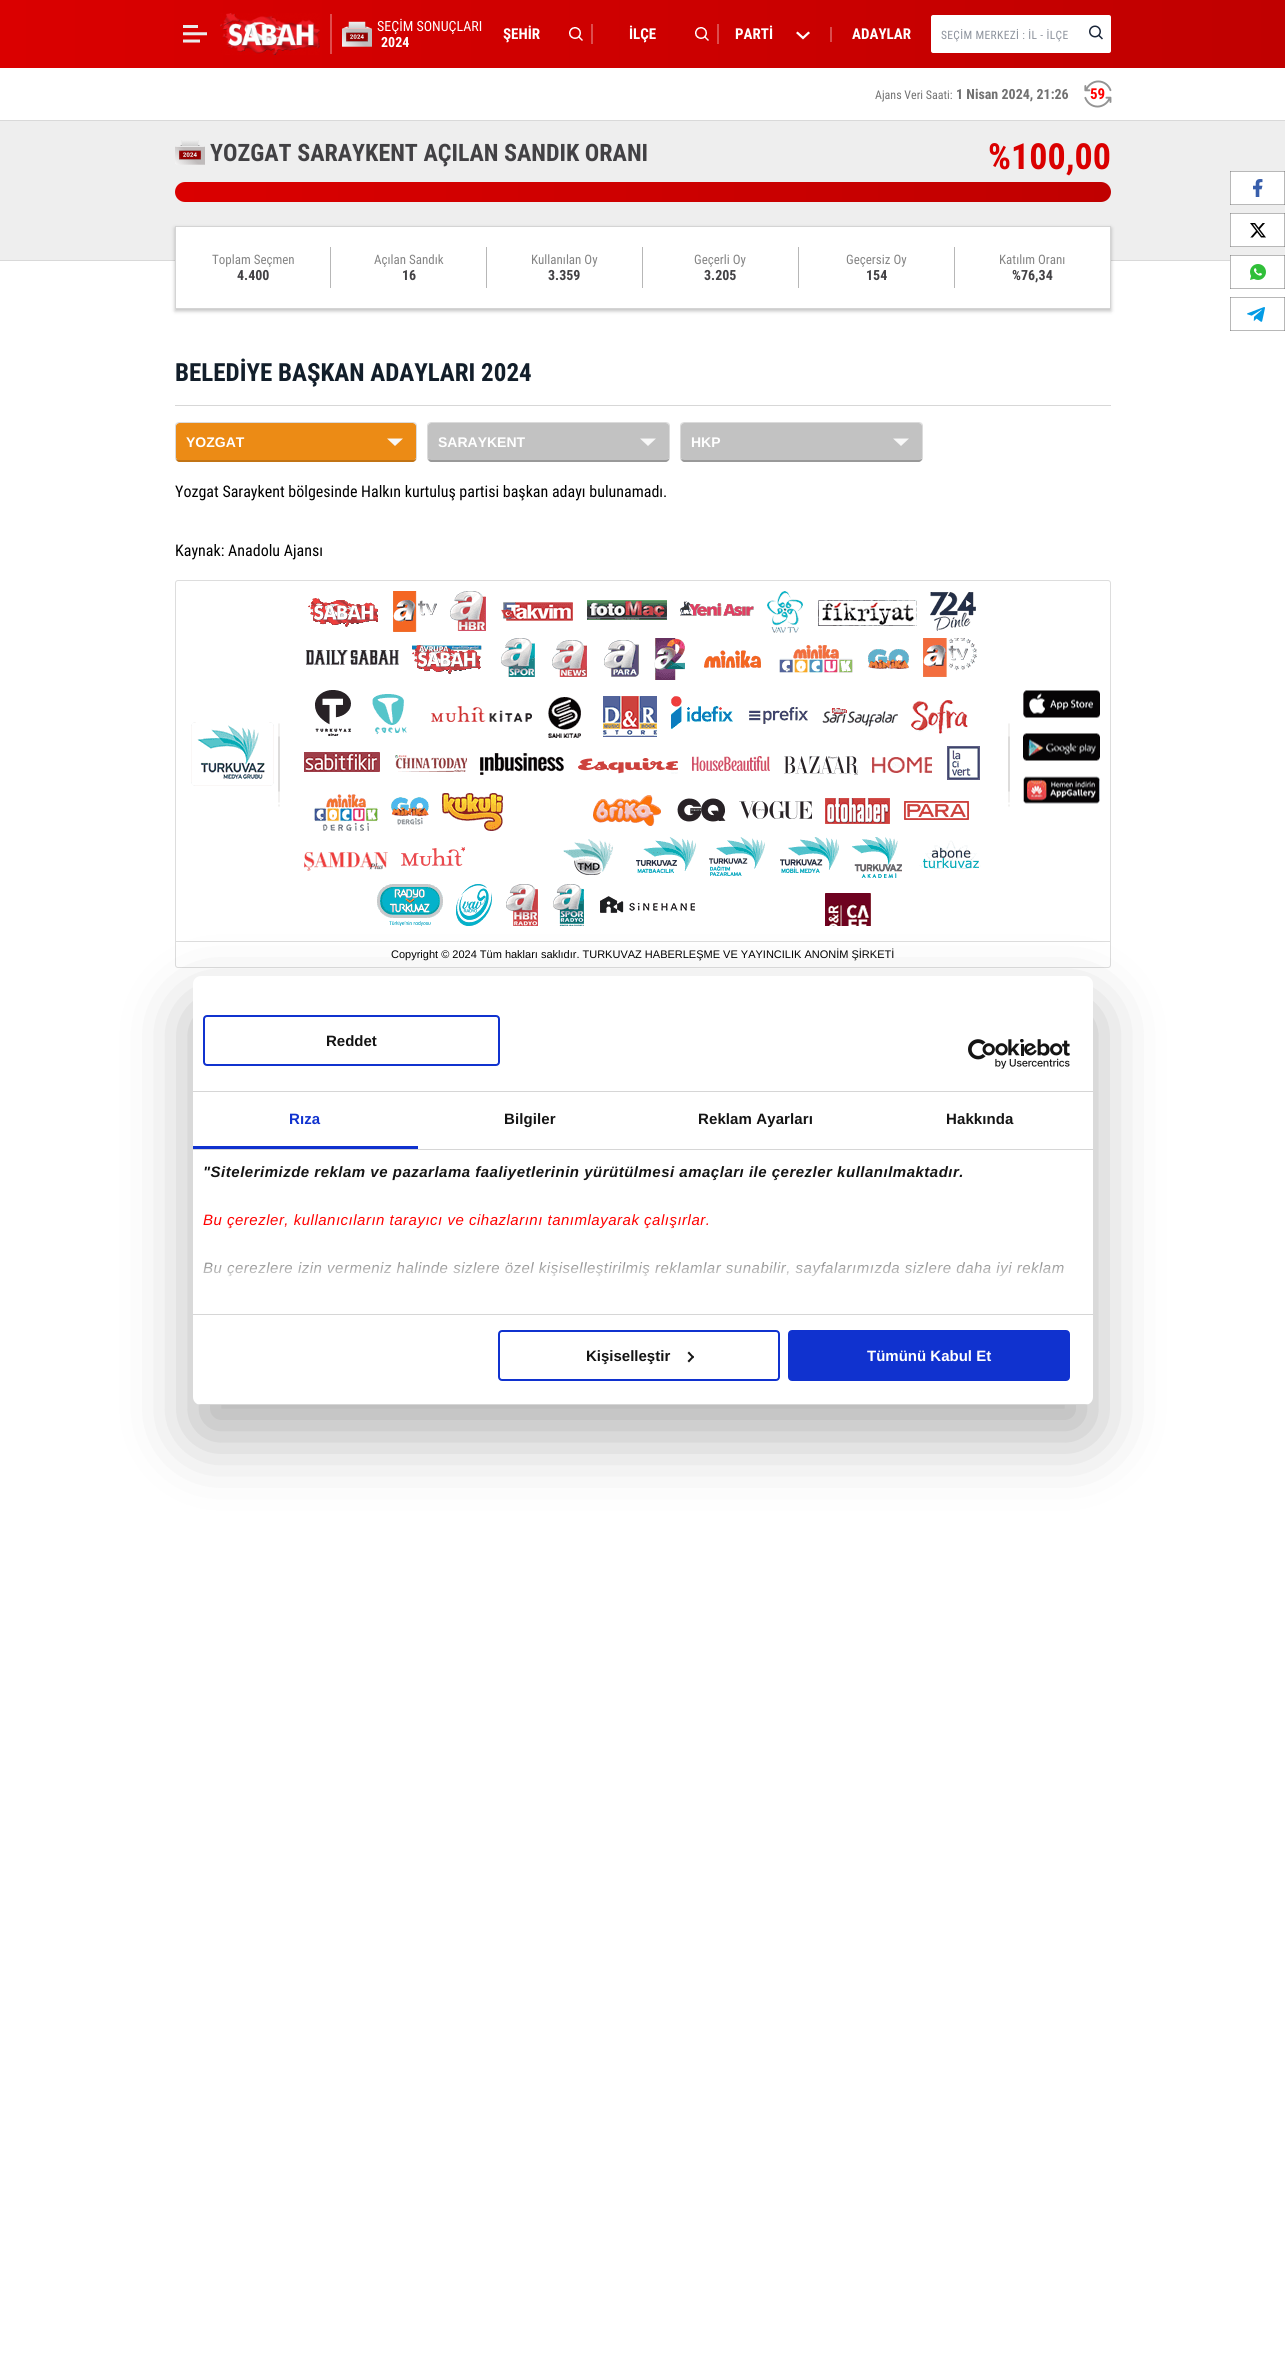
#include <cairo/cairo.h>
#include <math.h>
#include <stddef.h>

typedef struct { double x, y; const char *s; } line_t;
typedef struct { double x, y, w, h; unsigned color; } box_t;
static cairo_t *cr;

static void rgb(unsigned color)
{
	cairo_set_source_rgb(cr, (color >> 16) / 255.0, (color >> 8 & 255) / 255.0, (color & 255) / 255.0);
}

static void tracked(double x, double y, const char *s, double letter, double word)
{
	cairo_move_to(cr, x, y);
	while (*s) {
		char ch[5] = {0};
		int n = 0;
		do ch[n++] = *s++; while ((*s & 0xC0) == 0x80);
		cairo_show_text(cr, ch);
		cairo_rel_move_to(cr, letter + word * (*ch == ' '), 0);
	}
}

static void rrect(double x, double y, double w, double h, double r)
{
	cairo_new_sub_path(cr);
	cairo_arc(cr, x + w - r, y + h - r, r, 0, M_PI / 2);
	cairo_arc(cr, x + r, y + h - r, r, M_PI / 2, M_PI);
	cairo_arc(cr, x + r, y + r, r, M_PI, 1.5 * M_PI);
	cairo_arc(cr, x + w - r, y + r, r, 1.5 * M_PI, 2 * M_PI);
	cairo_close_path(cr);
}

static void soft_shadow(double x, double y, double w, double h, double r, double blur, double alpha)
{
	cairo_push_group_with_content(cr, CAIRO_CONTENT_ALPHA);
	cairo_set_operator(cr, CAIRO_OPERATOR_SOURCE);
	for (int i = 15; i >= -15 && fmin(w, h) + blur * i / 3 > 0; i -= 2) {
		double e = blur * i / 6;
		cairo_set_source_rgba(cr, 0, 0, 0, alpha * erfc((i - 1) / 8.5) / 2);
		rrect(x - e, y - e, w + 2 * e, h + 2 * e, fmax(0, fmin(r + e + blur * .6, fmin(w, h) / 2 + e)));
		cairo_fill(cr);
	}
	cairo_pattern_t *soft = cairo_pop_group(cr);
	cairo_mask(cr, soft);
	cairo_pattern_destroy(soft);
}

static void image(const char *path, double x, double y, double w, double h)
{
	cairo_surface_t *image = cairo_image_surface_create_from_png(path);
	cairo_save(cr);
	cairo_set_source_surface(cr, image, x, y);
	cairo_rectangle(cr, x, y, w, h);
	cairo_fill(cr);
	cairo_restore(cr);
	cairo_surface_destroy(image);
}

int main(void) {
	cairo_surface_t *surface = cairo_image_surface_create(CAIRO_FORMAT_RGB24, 1285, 2380);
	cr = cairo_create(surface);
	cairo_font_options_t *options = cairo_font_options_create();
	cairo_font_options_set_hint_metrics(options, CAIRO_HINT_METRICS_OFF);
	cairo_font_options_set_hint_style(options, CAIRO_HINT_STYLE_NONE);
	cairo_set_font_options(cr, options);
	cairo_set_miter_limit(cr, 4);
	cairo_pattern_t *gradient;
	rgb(0xffffff);
	cairo_paint(cr);
	gradient = cairo_pattern_create_linear(1285, 60, 0, 60);
	cairo_pattern_add_color_stop_rgba(gradient, 0, 0.753, 0, 0, 1);
	cairo_pattern_add_color_stop_rgba(gradient, 1, 0.855, 0, 0, 1);
	cairo_set_source(cr, gradient);
	cairo_pattern_destroy(gradient);
	cairo_rectangle(cr, 0, 0, 1285, 68);
	cairo_fill(cr);
	image("img/1.png", 183, 25, 24, 18);
	rgb(0xe04d4d);
	cairo_rectangle(cr, 330, 14, 2, 40);
	cairo_fill(cr);
	image("img/2.png", 220, 13, 100, 42);
	image("img/3.png", 342, 21, 30, 26);
	image("img/4.png", 569, 27, 14, 14);
	rgb(0xdd4d4d);
	cairo_rectangle(cr, 591, 24, 2, 20);
	cairo_fill(cr);
	image("img/5.png", 695, 27, 14, 14);
	rgb(0xdb4d4d);
	cairo_rectangle(cr, 717, 24, 2, 20);
	cairo_fill(cr);
	rgb(0xd94d4d);
	cairo_rectangle(cr, 830, 27, 2, 15);
	cairo_fill(cr);
	image("img/6.png", 796, 31, 14, 9);
	rgb(0xffffff);
	cairo_new_path(cr);
	cairo_move_to(cr, 933, 15);
	cairo_line_to(cr, 1081, 15);
	cairo_line_to(cr, 1081, 53);
	cairo_line_to(cr, 933, 53);
	cairo_curve_to(cr, 932, 53, 931, 52, 931, 51);
	cairo_line_to(cr, 931, 17);
	cairo_curve_to(cr, 931, 16, 932, 15, 933, 15);
	cairo_close_path(cr);
	cairo_fill(cr);
	cairo_new_path(cr);
	cairo_move_to(cr, 1081, 15);
	cairo_line_to(cr, 1109, 15);
	cairo_curve_to(cr, 1110, 15, 1111, 16, 1111, 17);
	cairo_line_to(cr, 1111, 51);
	cairo_curve_to(cr, 1111, 52, 1110, 53, 1109, 53);
	cairo_line_to(cr, 1081, 53);
	cairo_close_path(cr);
	cairo_fill(cr);
	image("img/7.png", 1089, 25, 14, 15);
	image("img/8.png", 1084, 80, 28, 28);
	{
		static const box_t items[] = {
			{0, 120, 1285, 1, 0xd9d9d9},
			{0, 121, 1285, 139, 0xeeeeee},
			{0, 260, 1230, 1, 0xd9d9d9},
		};
		for (size_t i = 0; i < sizeof items / sizeof *items; i++) {
			rgb(items[i].color);
			cairo_rectangle(cr, items[i].x, items[i].y, items[i].w, items[i].h);
			cairo_fill(cr);
		}
	}
	image("img/9.png", 175, 140, 30, 25);
	gradient = cairo_pattern_create_linear(1111, 192, 175, 192);
	cairo_pattern_add_color_stop_rgba(gradient, 0, 0.753, 0, 0, 1);
	cairo_pattern_add_color_stop_rgba(gradient, 1, 0.855, 0, 0, 1);
	cairo_set_source(cr, gradient);
	cairo_pattern_destroy(gradient);
	rrect(175, 182, 936, 20, 10);
	cairo_fill(cr);
	rgb(0x000000);
	soft_shadow(175, 228, 936, 83, 0, 2, 0.25);
	rgb(0xffffff);
	cairo_rectangle(cr, 175.5, 226.5, 935, 82);
	cairo_fill_preserve(cr);
	rgb(0xd4d4d4);
	cairo_set_line_width(cr, 1);
	cairo_stroke(cr);
	{
		static const box_t items[] = {
			{330, 247, 1, 41, 0xb7b7b7},
			{486, 247, 1, 41, 0xb7b7b7},
			{642, 247, 1, 41, 0xb7b7b7},
			{798, 247, 1, 41, 0xb7b7b7},
			{954, 247, 1, 41, 0xb7b7b7},
		};
		for (size_t i = 0; i < sizeof items / sizeof *items; i++) {
			rgb(items[i].color);
			cairo_rectangle(cr, items[i].x, items[i].y, items[i].w, items[i].h);
			cairo_fill(cr);
		}
	}
	image("img/10.png", 1230, 171, 55, 34);
	image("img/11.png", 1230, 213, 55, 34);
	image("img/12.png", 1230, 255, 55, 34);
	image("img/13.png", 1230, 297, 55, 34);
	rgb(0xd7d7d7);
	cairo_rectangle(cr, 175, 405, 936, 1);
	cairo_fill(cr);
	rgb(0xec8b15);
	cairo_new_path(cr);
	cairo_move_to(cr, 179, 423);
	cairo_line_to(cr, 413, 423);
	cairo_curve_to(cr, 415, 423, 416, 424, 416, 426);
	cairo_line_to(cr, 416, 458);
	cairo_curve_to(cr, 416, 459, 415, 460, 413, 460);
	cairo_line_to(cr, 179, 460);
	cairo_curve_to(cr, 177, 460, 176, 459, 176, 458);
	cairo_line_to(cr, 176, 426);
	cairo_curve_to(cr, 176, 424, 177, 423, 179, 423);
	cairo_close_path(cr);
	cairo_fill(cr);
	rgb(0xdbdbdb);
	cairo_new_path(cr);
	cairo_move_to(cr, 179, 422);
	cairo_line_to(cr, 176, 423);
	cairo_line_to(cr, 177, 424);
	cairo_line_to(cr, 179, 423);
	cairo_line_to(cr, 413, 423);
	cairo_line_to(cr, 415, 424);
	cairo_line_to(cr, 416, 423);
	cairo_line_to(cr, 413, 422);
	cairo_close_path(cr);
	cairo_fill(cr);
	cairo_new_path(cr);
	cairo_move_to(cr, 417, 458);
	cairo_line_to(cr, 417, 426);
	cairo_curve_to(cr, 417, 425, 416.5, 424, 416, 423);
	cairo_line_to(cr, 415, 424);
	cairo_line_to(cr, 416, 425.5);
	cairo_line_to(cr, 416, 458);
	cairo_line_to(cr, 415.5, 459);
	cairo_line_to(cr, 416, 460.5);
	cairo_curve_to(cr, 416.5, 459.5, 417, 459, 417, 458);
	cairo_close_path(cr);
	cairo_fill(cr);
	rgb(0xc27415);
	cairo_new_path(cr);
	cairo_move_to(cr, 179, 462);
	cairo_line_to(cr, 413, 462);
	cairo_curve_to(cr, 414, 462, 415, 461, 416, 460);
	cairo_line_to(cr, 416, 459);
	cairo_line_to(cr, 413, 460);
	cairo_line_to(cr, 218, 460);
	cairo_line_to(cr, 179, 460);
	cairo_line_to(cr, 176, 459);
	cairo_line_to(cr, 176, 460);
	cairo_curve_to(cr, 177, 461, 178, 462, 179, 462);
	cairo_close_path(cr);
	cairo_fill(cr);
	rgb(0xdbdbdb);
	cairo_new_path(cr);
	cairo_move_to(cr, 175, 426);
	cairo_line_to(cr, 175, 458);
	cairo_curve_to(cr, 175, 459, 175.5, 459.5, 176, 460.5);
	cairo_line_to(cr, 176.5, 459);
	cairo_line_to(cr, 176, 458);
	cairo_line_to(cr, 176, 425.5);
	cairo_line_to(cr, 177, 424);
	cairo_line_to(cr, 176, 423);
	cairo_curve_to(cr, 175.5, 424, 175, 425, 175, 426);
	cairo_close_path(cr);
	cairo_fill(cr);
	rgb(0xf8f8f8);
	cairo_new_path(cr);
	cairo_move_to(cr, 395, 446);
	cairo_line_to(cr, 387, 438.5);
	cairo_line_to(cr, 403, 438.5);
	cairo_close_path(cr);
	cairo_fill(cr);
	rgb(0xc2c2c2);
	cairo_new_path(cr);
	cairo_move_to(cr, 431, 423);
	cairo_line_to(cr, 666, 423);
	cairo_curve_to(cr, 668, 423, 669, 424, 669, 426);
	cairo_line_to(cr, 669, 458);
	cairo_curve_to(cr, 669, 459, 668, 460, 666, 460);
	cairo_line_to(cr, 431, 460);
	cairo_curve_to(cr, 429, 460, 428, 459, 428, 458);
	cairo_line_to(cr, 428, 426);
	cairo_curve_to(cr, 428, 424, 429, 423, 431, 423);
	cairo_close_path(cr);
	cairo_fill(cr);
	rgb(0xdbdbdb);
	cairo_new_path(cr);
	cairo_move_to(cr, 431, 422);
	cairo_line_to(cr, 428, 423);
	cairo_line_to(cr, 429, 424);
	cairo_line_to(cr, 431, 423);
	cairo_line_to(cr, 666, 423);
	cairo_line_to(cr, 668, 424);
	cairo_line_to(cr, 669, 423);
	cairo_line_to(cr, 666, 422);
	cairo_close_path(cr);
	cairo_fill(cr);
	cairo_new_path(cr);
	cairo_move_to(cr, 670, 458);
	cairo_line_to(cr, 670, 426);
	cairo_curve_to(cr, 670, 425, 669.5, 424, 669, 423);
	cairo_line_to(cr, 668, 424);
	cairo_line_to(cr, 669, 425.5);
	cairo_line_to(cr, 669, 458);
	cairo_line_to(cr, 668.5, 459);
	cairo_line_to(cr, 669, 460.5);
	cairo_curve_to(cr, 669.5, 459.5, 670, 459, 670, 458);
	cairo_close_path(cr);
	cairo_fill(cr);
	rgb(0x999999);
	cairo_new_path(cr);
	cairo_move_to(cr, 431, 462);
	cairo_line_to(cr, 666, 462);
	cairo_curve_to(cr, 667, 462, 668, 461, 669, 460);
	cairo_line_to(cr, 669, 459);
	cairo_line_to(cr, 666, 460);
	cairo_line_to(cr, 431, 460);
	cairo_line_to(cr, 428, 459);
	cairo_line_to(cr, 428, 460);
	cairo_curve_to(cr, 429, 461, 430, 462, 431, 462);
	cairo_close_path(cr);
	cairo_fill(cr);
	rgb(0xdbdbdb);
	cairo_new_path(cr);
	cairo_move_to(cr, 427, 426);
	cairo_line_to(cr, 427, 458);
	cairo_curve_to(cr, 427, 459, 427.5, 459.5, 428, 460.5);
	cairo_line_to(cr, 428.5, 459);
	cairo_line_to(cr, 428, 458);
	cairo_line_to(cr, 428, 425.5);
	cairo_line_to(cr, 429, 424);
	cairo_line_to(cr, 428, 423);
	cairo_curve_to(cr, 427.5, 424, 427, 425, 427, 426);
	cairo_close_path(cr);
	cairo_fill(cr);
	rgb(0xf8f8f8);
	cairo_new_path(cr);
	cairo_move_to(cr, 648, 446);
	cairo_line_to(cr, 640, 438.5);
	cairo_line_to(cr, 656, 438.5);
	cairo_close_path(cr);
	cairo_fill(cr);
	rgb(0xc2c2c2);
	cairo_new_path(cr);
	cairo_move_to(cr, 684, 423);
	cairo_line_to(cr, 919, 423);
	cairo_curve_to(cr, 921, 423, 922, 424, 922, 426);
	cairo_line_to(cr, 922, 458);
	cairo_curve_to(cr, 922, 459, 921, 460, 919, 460);
	cairo_line_to(cr, 684, 460);
	cairo_curve_to(cr, 682, 460, 681, 459, 681, 458);
	cairo_line_to(cr, 681, 426);
	cairo_curve_to(cr, 681, 424, 682, 423, 684, 423);
	cairo_close_path(cr);
	cairo_fill(cr);
	rgb(0xdbdbdb);
	cairo_new_path(cr);
	cairo_move_to(cr, 684, 422);
	cairo_line_to(cr, 681, 423);
	cairo_line_to(cr, 682, 424);
	cairo_line_to(cr, 684, 423);
	cairo_line_to(cr, 919, 423);
	cairo_line_to(cr, 921, 424);
	cairo_line_to(cr, 922, 423);
	cairo_line_to(cr, 919, 422);
	cairo_close_path(cr);
	cairo_fill(cr);
	cairo_new_path(cr);
	cairo_move_to(cr, 923, 458);
	cairo_line_to(cr, 923, 426);
	cairo_curve_to(cr, 923, 425, 922.5, 424, 922, 423);
	cairo_line_to(cr, 921, 424);
	cairo_line_to(cr, 922, 425.5);
	cairo_line_to(cr, 922, 458);
	cairo_line_to(cr, 921.5, 459);
	cairo_line_to(cr, 922, 460.5);
	cairo_curve_to(cr, 922.5, 459.5, 923, 459, 923, 458);
	cairo_close_path(cr);
	cairo_fill(cr);
	rgb(0x999999);
	cairo_new_path(cr);
	cairo_move_to(cr, 684, 462);
	cairo_line_to(cr, 919, 462);
	cairo_curve_to(cr, 920, 462, 921, 461, 922, 460);
	cairo_line_to(cr, 922, 459);
	cairo_line_to(cr, 919, 460);
	cairo_line_to(cr, 684, 460);
	cairo_line_to(cr, 681, 459);
	cairo_line_to(cr, 681, 460);
	cairo_curve_to(cr, 682, 461, 683, 462, 684, 462);
	cairo_close_path(cr);
	cairo_fill(cr);
	rgb(0xdbdbdb);
	cairo_new_path(cr);
	cairo_move_to(cr, 680, 426);
	cairo_line_to(cr, 680, 458);
	cairo_curve_to(cr, 680, 459, 680.5, 459.5, 681, 460.5);
	cairo_line_to(cr, 681.5, 459);
	cairo_line_to(cr, 681, 458);
	cairo_line_to(cr, 681, 425.5);
	cairo_line_to(cr, 682, 424);
	cairo_line_to(cr, 681, 423);
	cairo_curve_to(cr, 680.5, 424, 680, 425, 680, 426);
	cairo_close_path(cr);
	cairo_fill(cr);
	rgb(0xf8f8f8);
	cairo_new_path(cr);
	cairo_move_to(cr, 901, 446);
	cairo_line_to(cr, 893, 438.5);
	cairo_line_to(cr, 909, 438.5);
	cairo_close_path(cr);
	cairo_fill(cr);
	rrect(175.5, 580.5, 935, 387, 2.5);
	rgb(0xdddddd);
	cairo_stroke(cr);
	cairo_rectangle(cr, 176, 941, 934, 1);
	cairo_fill(cr);
	image("img/14.png", 191, 722, 83, 64);
	image("img/15.png", 278, 723, 2, 84);
	image("img/16.png", 308, 598, 70, 29);
	image("img/17.png", 393, 591, 44, 41);
	image("img/18.png", 450, 591, 36, 40);
	image("img/19.png", 501, 602, 72, 19);
	image("img/20.png", 587, 600, 80, 20);
	image("img/21.png", 680, 601, 74, 15);
	image("img/22.png", 767, 591, 36, 42);
	image("img/23.png", 818, 600, 99, 26);
	image("img/24.png", 930, 592, 46, 39);
	image("img/25.png", 306, 650, 93, 15);
	image("img/26.png", 412, 645, 70, 29);
	image("img/27.png", 501, 638, 34, 39);
	image("img/28.png", 552, 640, 35, 37);
	image("img/29.png", 604, 640, 35, 37);
	image("img/30.png", 654, 638, 31, 42);
	image("img/31.png", 704, 650, 57, 18);
	image("img/32.png", 779, 645, 74, 28);
	image("img/33.png", 868, 649, 41, 20);
	image("img/34.png", 923, 638, 54, 39);
	image("img/35.png", 315, 690, 36, 46);
	image("img/36.png", 372, 694, 35, 41);
	image("img/37.png", 431, 706, 101, 16);
	image("img/38.png", 548, 697, 33, 41);
	image("img/39.png", 603, 696, 54, 41);
	image("img/40.png", 671, 696, 62, 33);
	image("img/41.png", 749, 707, 59, 17);
	image("img/42.png", 822, 708, 76, 19);
	image("img/43.png", 911, 700, 57, 34);
	image("img/44.png", 304, 752, 76, 20);
	image("img/45.png", 395, 755, 72, 17);
	image("img/46.png", 480, 753, 84, 22);
	image("img/47.png", 578, 758, 100, 16);
	image("img/48.png", 692, 756, 78, 15);
	image("img/49.png", 784, 756, 74, 19);
	image("img/50.png", 872, 757, 60, 16);
	image("img/51.png", 947, 746, 33, 34);
	image("img/52.png", 314, 794, 64, 37);
	image("img/53.png", 391, 797, 38, 28);
	image("img/54.png", 442, 793, 61, 38);
	image("img/55.png", 593, 795, 68, 31);
	image("img/56.png", 677, 798, 49, 24);
	image("img/57.png", 739, 801, 73, 18);
	image("img/58.png", 825, 798, 65, 26);
	image("img/59.png", 904, 801, 65, 19);
	image("img/60.png", 304, 852, 84, 19);
	image("img/61.png", 401, 847, 64, 19);
	image("img/62.png", 563, 839, 50, 36);
	image("img/63.png", 636, 837, 60, 36);
	image("img/64.png", 709, 837, 56, 39);
	image("img/65.png", 780, 837, 59, 36);
	image("img/66.png", 852, 837, 50, 41);
	image("img/67.png", 919, 840, 62, 29);
	image("img/68.png", 377, 884, 66, 42);
	image("img/69.png", 456, 884, 36, 42);
	image("img/70.png", 506, 884, 32, 42);
	image("img/71.png", 553, 884, 31, 42);
	image("img/72.png", 600, 896, 95, 17);
	image("img/73.png", 825, 893, 46, 33);
	image("img/15.png", 1008, 723, 2, 84);
	image("img/74.png", 1023, 690, 77, 28);
	image("img/75.png", 1023, 733, 77, 28);
	image("img/76.png", 1023, 776, 77, 28);
	rgb(0x000000);
	soft_shadow(193, 1008, 900, 429, 8, 34, 0.3);
	rgb(0xffffff);
	rrect(193, 976, 900, 429, 8);
	cairo_fill(cr);
	cairo_save(cr);
	rrect(193, 976, 900, 429, 8);
	cairo_clip(cr);
	rgb(0xd6d6d6);
	cairo_rectangle(cr, 193, 1404, 900, 1);
	cairo_fill(cr);
	cairo_restore(cr);
	rrect(204, 1016, 295, 49, 3);
	rgb(0x1032cf);
	cairo_set_line_width(cr, 2);
	cairo_stroke(cr);
	rrect(499, 1331, 280, 49, 3);
	cairo_stroke(cr);
	rgb(0x141414);
	cairo_new_path(cr);
	cairo_move_to(cr, 689, 1351.5);
	cairo_line_to(cr, 694, 1357);
	cairo_line_to(cr, 693, 1358.5);
	cairo_line_to(cr, 687.5, 1353);
	cairo_close_path(cr);
	cairo_fill(cr);
	cairo_new_path(cr);
	cairo_move_to(cr, 693, 1355.5);
	cairo_line_to(cr, 694, 1357);
	cairo_line_to(cr, 689, 1362.5);
	cairo_line_to(cr, 687.5, 1361);
	cairo_close_path(cr);
	cairo_fill(cr);
	rgb(0x1032cf);
	rrect(789, 1331, 280, 49, 3);
	cairo_fill_preserve(cr);
	cairo_stroke(cr);
	rgb(0xd6d6d6);
	cairo_rectangle(cr, 193, 1091, 900, 1);
	cairo_fill(cr);
	image("img/77.png", 968, 1039, 102, 30);
	{
		static const box_t items[] = {
			{193, 1149, 900, 1, 0xd6d6d6},
			{193, 1146, 225, 3, 0x1032cf},
			{193, 1314, 900, 1, 0xd6d6d6},
		};
		for (size_t i = 0; i < sizeof items / sizeof *items; i++) {
			rgb(items[i].color);
			cairo_rectangle(cr, items[i].x, items[i].y, items[i].w, items[i].h);
			cairo_fill(cr);
		}
	}
	cairo_select_font_face(cr, "Roboto Condensed", CAIRO_FONT_SLANT_NORMAL, CAIRO_FONT_WEIGHT_NORMAL);
	cairo_set_font_size(cr, 14);
	rgb(0xffffff);
	cairo_move_to(cr, 377, 31);
	cairo_show_text(cr, "SEÇİM SONUÇLARI");
	cairo_select_font_face(cr, "Roboto Condensed", CAIRO_FONT_SLANT_NORMAL, CAIRO_FONT_WEIGHT_BOLD);
	cairo_move_to(cr, 381, 47);
	cairo_show_text(cr, "2024");
	cairo_set_font_size(cr, 15);
	{
		static const line_t items[] = {
			{503, 39, "ŞEHİR"},
			{629, 39, "İLÇE"},
			{735, 39, "PARTİ"},
			{852, 39, "ADAYLAR"},
		};
		for (size_t i = 0; i < sizeof items / sizeof *items; i++) {
			cairo_move_to(cr, items[i].x, items[i].y);
			cairo_show_text(cr, items[i].s);
		}
	}
	cairo_select_font_face(cr, "Roboto Condensed", CAIRO_FONT_SLANT_NORMAL, CAIRO_FONT_WEIGHT_NORMAL);
	cairo_set_font_size(cr, 11.5);
	rgb(0x8c929c);
	tracked(941, 39, "SEÇİM MERKEZİ : İL - İLÇE", 0.35, 0);
	cairo_set_font_size(cr, 12);
	rgb(0x717171);
	cairo_move_to(cr, 875, 99);
	cairo_show_text(cr, "Ajans Veri Saati:");
	cairo_select_font_face(cr, "Roboto Condensed", CAIRO_FONT_SLANT_NORMAL, CAIRO_FONT_WEIGHT_BOLD);
	cairo_set_font_size(cr, 14);
	cairo_move_to(cr, 956, 99);
	cairo_show_text(cr, "1 Nisan 2024, 21:26");
	cairo_set_font_size(cr, 15);
	rgb(0xff0000);
	cairo_move_to(cr, 1090, 99);
	cairo_show_text(cr, "59");
	cairo_set_font_size(cr, 24);
	rgb(0x424144);
	cairo_move_to(cr, 210, 161);
	cairo_show_text(cr, "YOZGAT SARAYKENT AÇILAN SANDIK ORANI");
	cairo_set_font_size(cr, 36);
	rgb(0xda0000);
	cairo_move_to(cr, 988, 169);
	cairo_show_text(cr, "%100,00");
	cairo_select_font_face(cr, "Roboto Condensed", CAIRO_FONT_SLANT_NORMAL, CAIRO_FONT_WEIGHT_NORMAL);
	cairo_set_font_size(cr, 13);
	rgb(0x848484);
	cairo_move_to(cr, 212, 264);
	cairo_show_text(cr, "Toplam Seçmen");
	cairo_select_font_face(cr, "Roboto Condensed", CAIRO_FONT_SLANT_NORMAL, CAIRO_FONT_WEIGHT_BOLD);
	cairo_set_font_size(cr, 14);
	rgb(0x424144);
	cairo_move_to(cr, 237, 280);
	cairo_show_text(cr, "4.400");
	cairo_select_font_face(cr, "Roboto Condensed", CAIRO_FONT_SLANT_NORMAL, CAIRO_FONT_WEIGHT_NORMAL);
	cairo_set_font_size(cr, 13);
	rgb(0x848484);
	cairo_move_to(cr, 374, 264);
	cairo_show_text(cr, "Açılan Sandık");
	cairo_select_font_face(cr, "Roboto Condensed", CAIRO_FONT_SLANT_NORMAL, CAIRO_FONT_WEIGHT_BOLD);
	cairo_set_font_size(cr, 14);
	rgb(0x424144);
	cairo_move_to(cr, 402, 280);
	cairo_show_text(cr, "16");
	cairo_select_font_face(cr, "Roboto Condensed", CAIRO_FONT_SLANT_NORMAL, CAIRO_FONT_WEIGHT_NORMAL);
	cairo_set_font_size(cr, 13);
	rgb(0x848484);
	cairo_move_to(cr, 531, 264);
	cairo_show_text(cr, "Kullanılan Oy");
	cairo_select_font_face(cr, "Roboto Condensed", CAIRO_FONT_SLANT_NORMAL, CAIRO_FONT_WEIGHT_BOLD);
	cairo_set_font_size(cr, 14);
	rgb(0x424144);
	cairo_move_to(cr, 548, 280);
	cairo_show_text(cr, "3.359");
	cairo_select_font_face(cr, "Roboto Condensed", CAIRO_FONT_SLANT_NORMAL, CAIRO_FONT_WEIGHT_NORMAL);
	cairo_set_font_size(cr, 13);
	rgb(0x848484);
	cairo_move_to(cr, 694, 264);
	cairo_show_text(cr, "Geçerli Oy");
	cairo_select_font_face(cr, "Roboto Condensed", CAIRO_FONT_SLANT_NORMAL, CAIRO_FONT_WEIGHT_BOLD);
	cairo_set_font_size(cr, 14);
	rgb(0x424144);
	cairo_move_to(cr, 704, 280);
	cairo_show_text(cr, "3.205");
	cairo_select_font_face(cr, "Roboto Condensed", CAIRO_FONT_SLANT_NORMAL, CAIRO_FONT_WEIGHT_NORMAL);
	cairo_set_font_size(cr, 13);
	rgb(0x848484);
	cairo_move_to(cr, 846, 264);
	cairo_show_text(cr, "Geçersiz Oy");
	cairo_select_font_face(cr, "Roboto Condensed", CAIRO_FONT_SLANT_NORMAL, CAIRO_FONT_WEIGHT_BOLD);
	cairo_set_font_size(cr, 14);
	rgb(0x424144);
	cairo_move_to(cr, 866, 280);
	cairo_show_text(cr, "154");
	cairo_select_font_face(cr, "Roboto Condensed", CAIRO_FONT_SLANT_NORMAL, CAIRO_FONT_WEIGHT_NORMAL);
	cairo_set_font_size(cr, 13);
	rgb(0x848484);
	cairo_move_to(cr, 999, 264);
	cairo_show_text(cr, "Katılım Oranı");
	cairo_select_font_face(cr, "Roboto Condensed", CAIRO_FONT_SLANT_NORMAL, CAIRO_FONT_WEIGHT_BOLD);
	cairo_set_font_size(cr, 14);
	rgb(0x424144);
	cairo_move_to(cr, 1012, 280);
	cairo_show_text(cr, "%76,34");
	cairo_set_font_size(cr, 25);
	rgb(0x121e2a);
	cairo_move_to(cr, 175, 381);
	cairo_show_text(cr, "BELEDİYE BAŞKAN ADAYLARI 2024");
	cairo_select_font_face(cr, "Liberation Sans", CAIRO_FONT_SLANT_NORMAL, CAIRO_FONT_WEIGHT_BOLD);
	cairo_set_font_size(cr, 14);
	rgb(0xffffff);
	{
		static const line_t items[] = {
			{186, 447, "YOZGAT"},
			{438, 447, "SARAYKENT"},
			{691, 447, "HKP"},
		};
		for (size_t i = 0; i < sizeof items / sizeof *items; i++) {
			cairo_move_to(cr, items[i].x, items[i].y);
			cairo_show_text(cr, items[i].s);
		}
	}
	cairo_select_font_face(cr, "Roboto Condensed", CAIRO_FONT_SLANT_NORMAL, CAIRO_FONT_WEIGHT_NORMAL);
	cairo_set_font_size(cr, 16);
	rgb(0x000000);
	cairo_move_to(cr, 175, 497);
	cairo_show_text(cr, "Yozgat Saraykent bölgesinde Halkın kurtuluş partisi başkan adayı bulunamadı.");
	cairo_move_to(cr, 175, 556);
	cairo_show_text(cr, "Kaynak: Anadolu Ajansı");
	cairo_select_font_face(cr, "Liberation Sans", CAIRO_FONT_SLANT_NORMAL, CAIRO_FONT_WEIGHT_NORMAL);
	cairo_set_font_size(cr, 11);
	cairo_move_to(cr, 391, 958);
	cairo_show_text(cr, "Copyright © 2024 Tüm hakları saklıdır. TURKUVAZ HABERLEŞME VE YAYINCILIK ANONİM ŞİRKETİ");
	cairo_select_font_face(cr, "Liberation Sans", CAIRO_FONT_SLANT_NORMAL, CAIRO_FONT_WEIGHT_BOLD);
	cairo_set_font_size(cr, 15);
	rgb(0x141414);
	cairo_move_to(cr, 326, 1046);
	cairo_show_text(cr, "Reddet");
	cairo_move_to(cr, 586, 1361);
	cairo_show_text(cr, "Kişiselleştir");
	rgb(0xffffff);
	cairo_move_to(cr, 867, 1361);
	cairo_show_text(cr, "Tümünü Kabul Et");
	rgb(0x1032cf);
	tracked(289, 1124, "Rıza", 0.1, 0);
	rgb(0x141414);
	{
		static const line_t items[] = {
			{504, 1124, "Bilgiler"},
			{698, 1124, "Reklam Ayarları"},
			{946, 1124, "Hakkında"},
		};
		for (size_t i = 0; i < sizeof items / sizeof *items; i++) {
			tracked(items[i].x, items[i].y, items[i].s, 0.1, 0);
		}
	}
	cairo_select_font_face(cr, "Liberation Sans", CAIRO_FONT_SLANT_ITALIC, CAIRO_FONT_WEIGHT_BOLD);
	tracked(203, 1177, "\"Sitelerimizde reklam ve pazarlama faaliyetlerinin yürütülmesi amaçları ile çerezler kullanılmaktadır.", 0.5, 0);
	cairo_select_font_face(cr, "Liberation Sans", CAIRO_FONT_SLANT_ITALIC, CAIRO_FONT_WEIGHT_NORMAL);
	rgb(0xff0000);
	tracked(203, 1225, "Bu çerezler, kullanıcıların tarayıcı ve cihazlarını tanımlayarak çalışırlar.", 0.5, 0);
	rgb(0x141414);
	tracked(203, 1273, "Bu çerezlere izin vermeniz halinde sizlere özel kişiselleştirilmiş reklamlar sunabilir, sayfalarımızda sizlere daha iyi reklam", 0.5, 0);
	gradient = cairo_pattern_create_linear(633, 1314, 633, 1239);
	cairo_pattern_add_color_stop_rgba(gradient, 0, 1, 1, 1, 1);
	cairo_pattern_add_color_stop_rgba(gradient, 0.5, 1, 1, 1, 0.8);
	cairo_pattern_add_color_stop_rgba(gradient, 1, 1, 1, 1, 0);
	cairo_set_source(cr, gradient);
	cairo_pattern_destroy(gradient);
	cairo_rectangle(cr, 203, 1262, 861, 15);
	cairo_fill(cr);
	cairo_surface_write_to_png(surface, "page.png");
	cairo_font_options_destroy(options);
	cairo_destroy(cr);
	cairo_surface_destroy(surface);
	return 0;
}
